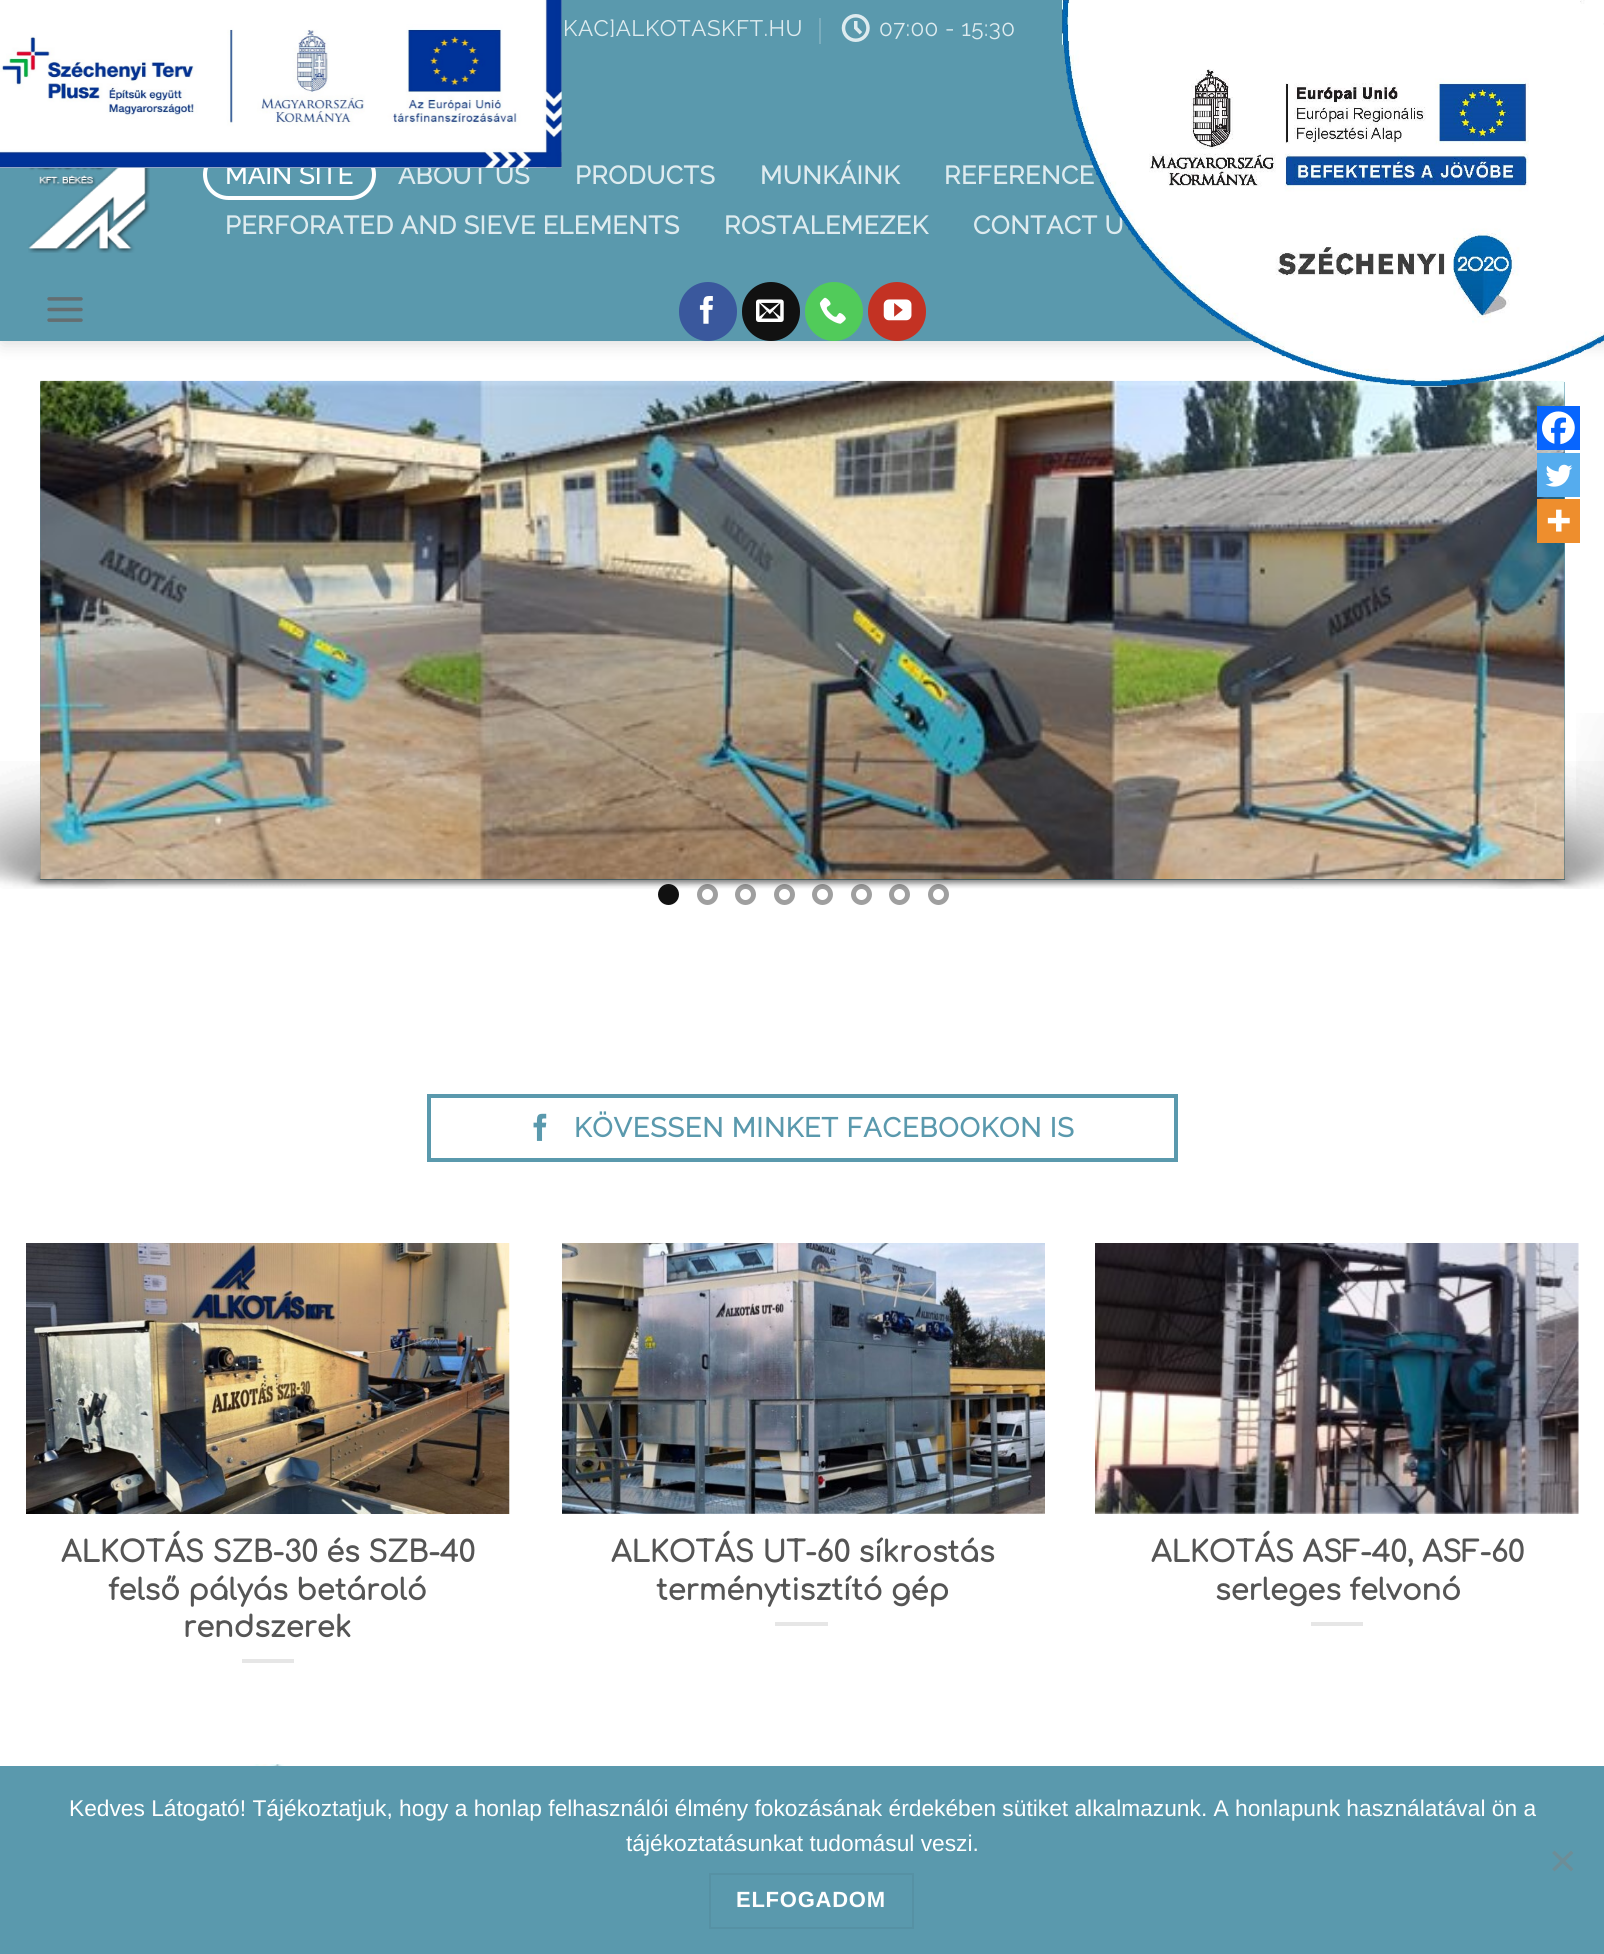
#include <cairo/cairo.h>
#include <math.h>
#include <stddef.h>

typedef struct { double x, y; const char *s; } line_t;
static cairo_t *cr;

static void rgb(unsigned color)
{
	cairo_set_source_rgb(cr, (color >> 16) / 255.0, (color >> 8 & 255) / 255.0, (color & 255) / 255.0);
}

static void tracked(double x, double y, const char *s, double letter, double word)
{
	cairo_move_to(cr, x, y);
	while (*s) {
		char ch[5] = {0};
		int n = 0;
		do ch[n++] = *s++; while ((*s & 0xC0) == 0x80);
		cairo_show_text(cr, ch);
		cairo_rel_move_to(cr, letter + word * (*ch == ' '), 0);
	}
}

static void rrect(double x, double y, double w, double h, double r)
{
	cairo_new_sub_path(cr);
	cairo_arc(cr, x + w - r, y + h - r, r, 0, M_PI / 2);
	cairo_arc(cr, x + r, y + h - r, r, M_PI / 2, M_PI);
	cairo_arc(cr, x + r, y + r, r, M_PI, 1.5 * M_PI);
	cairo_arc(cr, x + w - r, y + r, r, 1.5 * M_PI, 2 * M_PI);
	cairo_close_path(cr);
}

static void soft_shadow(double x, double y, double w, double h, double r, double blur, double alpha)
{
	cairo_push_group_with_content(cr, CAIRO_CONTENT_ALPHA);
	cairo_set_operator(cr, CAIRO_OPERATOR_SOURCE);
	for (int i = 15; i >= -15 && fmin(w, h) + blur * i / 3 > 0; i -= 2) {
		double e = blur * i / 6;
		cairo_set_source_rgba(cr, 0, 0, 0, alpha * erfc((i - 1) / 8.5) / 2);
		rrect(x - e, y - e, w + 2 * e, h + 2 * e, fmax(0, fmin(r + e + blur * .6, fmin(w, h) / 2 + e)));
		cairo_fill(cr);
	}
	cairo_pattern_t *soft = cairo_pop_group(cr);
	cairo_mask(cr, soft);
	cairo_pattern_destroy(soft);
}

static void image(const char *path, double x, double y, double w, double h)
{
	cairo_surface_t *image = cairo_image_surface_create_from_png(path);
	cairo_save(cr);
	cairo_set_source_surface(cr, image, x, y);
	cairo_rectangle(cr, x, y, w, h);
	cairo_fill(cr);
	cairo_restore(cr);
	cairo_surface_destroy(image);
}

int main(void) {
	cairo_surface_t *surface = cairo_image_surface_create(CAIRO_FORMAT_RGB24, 1604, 1954);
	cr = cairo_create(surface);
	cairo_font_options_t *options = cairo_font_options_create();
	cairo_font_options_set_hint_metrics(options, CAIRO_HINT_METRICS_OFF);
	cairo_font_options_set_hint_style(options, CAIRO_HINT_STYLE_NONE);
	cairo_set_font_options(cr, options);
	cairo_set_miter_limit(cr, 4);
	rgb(0xffffff);
	cairo_paint(cr);
	rgb(0x000000);
	soft_shadow(2, 2, 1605, 341, 0, 9, 0.15);
	rgb(0x5a99ad);
	cairo_rectangle(cr, 0, 0, 1604, 341);
	cairo_fill(cr);
	rgb(0x7badbd);
	cairo_rectangle(cr, 819, 18, 2, 26);
	cairo_fill(cr);
	image("img/3.png", 841, 14, 29, 28);
	image("img/4.png", 28, 168, 122, 85);
	rrect(205, 151, 169, 47, 23.5);
	rgb(0xffffff);
	cairo_set_line_width(cr, 4);
	cairo_stroke(cr);
	image("img/5.png", 47, 297, 36, 25);
	rgb(0x3a589d);
	rrect(680, 283, 56, 57, 28);
	cairo_fill_preserve(cr);
	cairo_set_line_width(cr, 2);
	cairo_stroke(cr);
	image("img/6.png", 699, 296, 14, 28);
	rgb(0x111111);
	rrect(743, 283, 56, 57, 28);
	cairo_fill_preserve(cr);
	cairo_stroke(cr);
	image("img/7.png", 756, 299, 28, 23);
	rgb(0x51cb5a);
	rrect(806, 283, 56, 57, 28);
	cairo_fill_preserve(cr);
	cairo_stroke(cr);
	image("img/8.png", 819, 297, 27, 27);
	rgb(0xc33223);
	rrect(869, 283, 56, 57, 28);
	cairo_fill_preserve(cr);
	cairo_stroke(cr);
	image("img/9.png", 883, 299, 29, 22);
	rgb(0x5a99ad);
	cairo_rectangle(cr, 40, 382, 1525, 498);
	cairo_fill(cr);
	image("img/12.png", 1576, 713, 28, 120);
	image("img/11.png", 0, 761, 1604, 128);
	image("img/10.png", 40, 380, 1525, 500);
	rgb(0x111111);
	cairo_arc(cr, 668.5, 894.5, 8, 0, 2 * M_PI);
	cairo_fill_preserve(cr);
	cairo_set_line_width(cr, 5);
	cairo_stroke(cr);
	cairo_arc(cr, 707.5, 894.5, 8, 0, 2 * M_PI);
	cairo_set_source_rgba(cr, 0.067, 0.067, 0.067, 0.4);
	cairo_stroke(cr);
	cairo_arc(cr, 745.5, 894.5, 8, 0, 2 * M_PI);
	cairo_stroke(cr);
	cairo_arc(cr, 784.5, 894.5, 8, 0, 2 * M_PI);
	cairo_stroke(cr);
	cairo_arc(cr, 822.5, 894.5, 8, 0, 2 * M_PI);
	cairo_stroke(cr);
	cairo_arc(cr, 861.5, 894.5, 8, 0, 2 * M_PI);
	cairo_stroke(cr);
	cairo_arc(cr, 899.5, 894.5, 8, 0, 2 * M_PI);
	cairo_stroke(cr);
	cairo_arc(cr, 938.5, 894.5, 8, 0, 2 * M_PI);
	cairo_stroke(cr);
	rgb(0x0765fe);
	cairo_rectangle(cr, 1537, 406, 43, 44);
	cairo_fill(cr);
	image("img/13.png", 1542, 411, 33, 34);
	rgb(0x55acee);
	cairo_rectangle(cr, 1537, 453, 43, 44);
	cairo_fill(cr);
	image("img/14.png", 1545, 464, 28, 23);
	rgb(0xee8e2d);
	cairo_rectangle(cr, 1537, 499, 43, 44);
	cairo_fill(cr);
	image("img/15.png", 1547, 509, 23, 23);
	cairo_rectangle(cr, 429, 1096, 747, 64);
	rgb(0x5a99ad);
	cairo_set_line_width(cr, 4);
	cairo_stroke(cr);
	image("img/16.png", 533, 1113, 14, 28);
	image("img/17.png", 26, 1243, 484, 271);
	rgb(0xe6e6e6);
	cairo_rectangle(cr, 242, 1659, 52, 4);
	cairo_fill(cr);
	image("img/18.png", 562, 1243, 483, 271);
	cairo_rectangle(cr, 775, 1622, 53, 4);
	cairo_fill(cr);
	image("img/19.png", 1095, 1243, 484, 271);
	cairo_rectangle(cr, 1311, 1622, 52, 4);
	cairo_fill(cr);
	image("img/20.png", 59, 1764, 225, 2);
	rgb(0x5a99ad);
	cairo_rectangle(cr, 0, 1766, 1604, 188);
	cairo_fill(cr);
	rgb(0x6d8d97);
	cairo_new_path(cr);
	cairo_move_to(cr, 1571, 1850.5);
	cairo_line_to(cr, 1573.5, 1853);
	cairo_line_to(cr, 1554.5, 1871.5);
	cairo_line_to(cr, 1552, 1869);
	cairo_close_path(cr);
	cairo_fill(cr);
	cairo_new_path(cr);
	cairo_move_to(cr, 1552, 1853);
	cairo_line_to(cr, 1554.5, 1850.5);
	cairo_line_to(cr, 1573.5, 1869);
	cairo_line_to(cr, 1571, 1871.5);
	cairo_close_path(cr);
	cairo_fill(cr);
	cairo_rectangle(cr, 710, 1874, 203, 54);
	rgb(0x5691a4);
	cairo_set_line_width(cr, 2);
	cairo_stroke(cr);
	cairo_select_font_face(cr, "Raleway Thin", CAIRO_FONT_SLANT_NORMAL, CAIRO_FONT_WEIGHT_NORMAL);
	cairo_set_font_size(cr, 22.4);
	rgb(0xdeebef);
	tracked(563, 36, "KAC]ALKOTASKFT.HU", 0.5, 0);
	tracked(879, 36, "07:00 - 15:30", 0.5, 0);
	cairo_select_font_face(cr, "Raleway", CAIRO_FONT_SLANT_NORMAL, CAIRO_FONT_WEIGHT_BOLD);
	cairo_set_font_size(cr, 25.25);
	rgb(0xffffff);
	tracked(225, 184, "MAIN SITE", 0.5, 0);
	rgb(0xdeebef);
	tracked(398, 184, "ABOUT US", 0.5, 0);
	image("img/1.png", 0, 0, 562, 168);
	{
		static const line_t items[] = {
			{575, 184, "PRODUCTS"},
			{760, 184, "MUNKÁINK"},
			{944, 184, "REFERENCE"},
			{225, 234, "PERFORATED AND SIEVE ELEMENTS"},
			{724, 234, "ROSTALEMEZEK"},
			{973, 234, "CONTACT U"},
		};
		for (size_t i = 0; i < sizeof items / sizeof *items; i++) {
			tracked(items[i].x, items[i].y, items[i].s, 0.5, 0);
		}
	}
	image("img/2.png", 1062, 0, 542, 387);
	cairo_set_font_size(cr, 27.2);
	rgb(0x5a99ad);
	tracked(574, 1137, "KÖVESSEN MINKET FACEBOOKON IS", 0.8, 0);
	cairo_select_font_face(cr, "Comfortaa", CAIRO_FONT_SLANT_NORMAL, CAIRO_FONT_WEIGHT_BOLD);
	cairo_set_font_size(cr, 29);
	rgb(0x555555);
	{
		static const line_t items[] = {
			{61, 1562, "ALKOTÁS SZB-30 és SZB-40"},
			{108, 1600, "felső pályás betároló"},
			{183, 1637, "rendszerek"},
			{611, 1562, "ALKOTÁS UT-60 síkrostás"},
			{656, 1600, "terménytisztító gép"},
			{1151, 1562, "ALKOTÁS ASF-40, ASF-60"},
			{1215, 1600, "serleges felvonó"},
		};
		for (size_t i = 0; i < sizeof items / sizeof *items; i++) {
			cairo_move_to(cr, items[i].x, items[i].y);
			cairo_show_text(cr, items[i].s);
		}
	}
	cairo_select_font_face(cr, "Liberation Sans", CAIRO_FONT_SLANT_NORMAL, CAIRO_FONT_WEIGHT_NORMAL);
	cairo_set_font_size(cr, 22.75);
	rgb(0xffffff);
	cairo_move_to(cr, 69, 1816);
	cairo_show_text(cr, "Kedves Látogató! Tájékoztatjuk, hogy a honlap felhasználói élmény fokozásának érdekében sütiket alkalmazunk. A honlapunk használatával ön a");
	cairo_move_to(cr, 626, 1851);
	cairo_show_text(cr, "tájékoztatásunkat tudomásul veszi.");
	cairo_select_font_face(cr, "Liberation Sans", CAIRO_FONT_SLANT_NORMAL, CAIRO_FONT_WEIGHT_BOLD);
	cairo_set_font_size(cr, 22);
	tracked(736, 1907, "ELFOGADOM", 0.75, 0);
	cairo_surface_write_to_png(surface, "page.png");
	cairo_font_options_destroy(options);
	cairo_destroy(cr);
	cairo_surface_destroy(surface);
	return 0;
}
